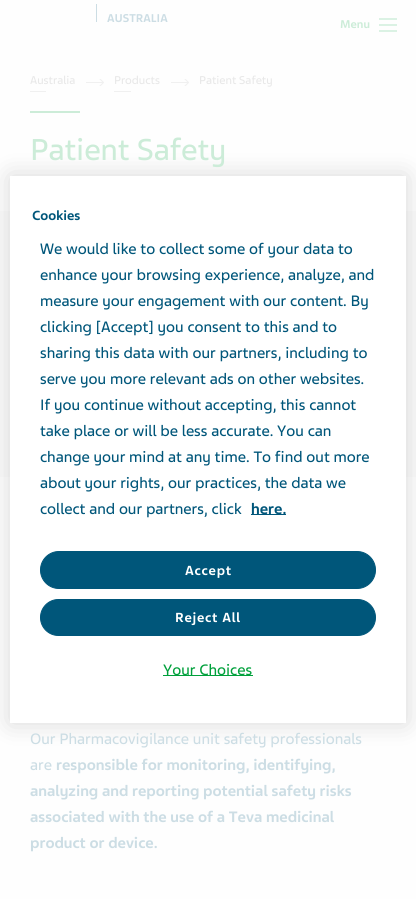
#include <cairo/cairo.h>
#include <math.h>
#include <stddef.h>

typedef struct { double x, y; const char *s; } line_t;
static cairo_t *cr;

static void rgb(unsigned color)
{
	cairo_set_source_rgb(cr, (color >> 16) / 255.0, (color >> 8 & 255) / 255.0, (color & 255) / 255.0);
}

static void tracked(double x, double y, const char *s, double letter, double word)
{
	cairo_move_to(cr, x, y);
	while (*s) {
		char ch[5] = {0};
		int n = 0;
		do ch[n++] = *s++; while ((*s & 0xC0) == 0x80);
		cairo_show_text(cr, ch);
		cairo_rel_move_to(cr, letter + word * (*ch == ' '), 0);
	}
}

static void rrect(double x, double y, double w, double h, double r)
{
	cairo_new_sub_path(cr);
	cairo_arc(cr, x + w - r, y + h - r, r, 0, M_PI / 2);
	cairo_arc(cr, x + r, y + h - r, r, M_PI / 2, M_PI);
	cairo_arc(cr, x + r, y + r, r, M_PI, 1.5 * M_PI);
	cairo_arc(cr, x + w - r, y + r, r, 1.5 * M_PI, 2 * M_PI);
	cairo_close_path(cr);
}

static void soft_shadow(double x, double y, double w, double h, double r, double blur, double alpha)
{
	cairo_push_group_with_content(cr, CAIRO_CONTENT_ALPHA);
	cairo_set_operator(cr, CAIRO_OPERATOR_SOURCE);
	for (int i = 15; i >= -15 && fmin(w, h) + blur * i / 3 > 0; i -= 2) {
		double e = blur * i / 6;
		cairo_set_source_rgba(cr, 0, 0, 0, alpha * erfc((i - 1) / 8.5) / 2);
		rrect(x - e, y - e, w + 2 * e, h + 2 * e, fmax(0, fmin(r + e + blur * .6, fmin(w, h) / 2 + e)));
		cairo_fill(cr);
	}
	cairo_pattern_t *soft = cairo_pop_group(cr);
	cairo_mask(cr, soft);
	cairo_pattern_destroy(soft);
}

int main(void) {
	cairo_surface_t *surface = cairo_image_surface_create(CAIRO_FORMAT_RGB24, 416, 899);
	cr = cairo_create(surface);
	cairo_font_options_t *options = cairo_font_options_create();
	cairo_font_options_set_hint_metrics(options, CAIRO_HINT_METRICS_OFF);
	cairo_font_options_set_hint_style(options, CAIRO_HINT_STYLE_NONE);
	cairo_set_font_options(cr, options);
	cairo_set_miter_limit(cr, 4);
	rgb(0xfefefe);
	cairo_paint(cr);
	rgb(0xccdde4);
	cairo_rectangle(cr, 96, 4, 1, 18);
	cairo_fill(cr);
	cairo_new_path(cr);
	cairo_move_to(cr, 379, 19);
	cairo_line_to(cr, 397, 19);
	cairo_move_to(cr, 379, 25);
	cairo_line_to(cr, 397, 25);
	cairo_move_to(cr, 379, 31);
	cairo_line_to(cr, 397, 31);
	rgb(0xccecd8);
	cairo_set_line_width(cr, 1.4);
	cairo_stroke(cr);
	rgb(0xf0f0f0);
	cairo_rectangle(cr, 30, 91, 16, 1);
	cairo_fill(cr);
	cairo_save(cr);
	cairo_rectangle(cr, 86, 79, 18, 7);
	cairo_clip(cr);
	cairo_new_path(cr);
	cairo_move_to(cr, -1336.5, 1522.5);
	cairo_line_to(cr, -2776.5, 82.5);
	cairo_line_to(cr, -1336.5, -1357.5);
	cairo_line_to(cr, 103.5, 82.5);
	cairo_close_path(cr);
	cairo_move_to(cr, -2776.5, 82.5);
	cairo_line_to(cr, 103.5, 82.5);
	cairo_move_to(cr, -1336.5, 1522.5);
	cairo_line_to(cr, -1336.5, -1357.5);
	cairo_set_line_width(cr, 1);
	cairo_stroke(cr);
	cairo_restore(cr);
	cairo_rectangle(cr, 114, 91, 17, 1);
	cairo_fill(cr);
	cairo_save(cr);
	cairo_rectangle(cr, 171, 79, 18, 7);
	cairo_clip(cr);
	cairo_new_path(cr);
	cairo_move_to(cr, -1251.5, 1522.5);
	cairo_line_to(cr, -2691.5, 82.5);
	cairo_line_to(cr, -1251.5, -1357.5);
	cairo_line_to(cr, 188.5, 82.5);
	cairo_close_path(cr);
	cairo_move_to(cr, -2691.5, 82.5);
	cairo_line_to(cr, 188.5, 82.5);
	cairo_move_to(cr, -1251.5, 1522.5);
	cairo_line_to(cr, -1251.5, -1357.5);
	cairo_set_line_width(cr, 1);
	cairo_stroke(cr);
	cairo_restore(cr);
	rgb(0xccecd8);
	cairo_rectangle(cr, 30, 111, 50, 2);
	cairo_fill(cr);
	rgb(0xfbfbfb);
	cairo_rectangle(cr, 0, 211, 416, 266);
	cairo_fill(cr);
	rgb(0x000000);
	soft_shadow(10, 176, 396, 547, 0, 12.5, 0.15);
	rgb(0xffffff);
	cairo_rectangle(cr, 10, 176, 396, 547);
	cairo_fill(cr);
	rgb(0x00567a);
	cairo_rectangle(cr, 251, 514, 35, 1);
	cairo_fill(cr);
	rrect(40.5, 551.5, 335, 37, 18.5);
	cairo_fill_preserve(cr);
	cairo_set_line_width(cr, 1);
	cairo_stroke(cr);
	rrect(40.5, 599.5, 335, 36, 18);
	cairo_fill_preserve(cr);
	cairo_stroke(cr);
	rgb(0x00a03b);
	cairo_rectangle(cr, 163, 675, 90, 1);
	cairo_fill(cr);
	cairo_select_font_face(cr, "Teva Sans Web", CAIRO_FONT_SLANT_NORMAL, CAIRO_FONT_WEIGHT_BOLD);
	cairo_set_font_size(cr, 12);
	rgb(0xccdde4);
	cairo_move_to(cr, 107, 22);
	cairo_show_text(cr, "AUSTRALIA");
	rgb(0xccecd8);
	cairo_move_to(cr, 340, 28);
	cairo_show_text(cr, "Menu");
	cairo_select_font_face(cr, "Teva Sans Web", CAIRO_FONT_SLANT_NORMAL, CAIRO_FONT_WEIGHT_NORMAL);
	rgb(0xe8e8e8);
	{
		static const line_t items[] = {
			{30, 84, "Australia"},
			{114, 84, "Products"},
			{199, 84, "Patient Safety"},
		};
		for (size_t i = 0; i < sizeof items / sizeof *items; i++) {
			cairo_move_to(cr, items[i].x, items[i].y);
			cairo_show_text(cr, items[i].s);
		}
	}
	cairo_set_font_size(cr, 32);
	rgb(0xccecd8);
	cairo_move_to(cr, 30, 160);
	cairo_show_text(cr, "Patient Safety");
	cairo_set_font_size(cr, 16);
	rgb(0xccdde4);
	cairo_move_to(cr, 30, 744);
	cairo_show_text(cr, "Our Pharmacovigilance unit safety professionals");
	cairo_move_to(cr, 30, 770);
	cairo_show_text(cr, "are");
	cairo_select_font_face(cr, "Teva Sans Web", CAIRO_FONT_SLANT_NORMAL, CAIRO_FONT_WEIGHT_BOLD);
	{
		static const line_t items[] = {
			{56, 770, "responsible for monitoring, identifying,"},
			{30, 796, "analyzing and reporting potential safety risks"},
			{30, 822, "associated with the use of a Teva medicinal"},
			{30, 848, "product or device."},
		};
		for (size_t i = 0; i < sizeof items / sizeof *items; i++) {
			cairo_move_to(cr, items[i].x, items[i].y);
			cairo_show_text(cr, items[i].s);
		}
	}
	cairo_set_font_size(cr, 14);
	rgb(0x00567a);
	cairo_move_to(cr, 32, 220);
	cairo_show_text(cr, "Cookies");
	cairo_select_font_face(cr, "Teva Sans Web", CAIRO_FONT_SLANT_NORMAL, CAIRO_FONT_WEIGHT_NORMAL);
	cairo_set_font_size(cr, 16);
	{
		static const line_t items[] = {
			{40, 254, "We would like to collect some of your data to"},
			{40, 280, "enhance your browsing experience, analyze, and"},
			{40, 306, "measure your engagement with our content. By"},
			{40, 332, "clicking [Accept] you consent to this and to"},
			{40, 358, "sharing this data with our partners, including to"},
			{40, 384, "serve you more relevant ads on other websites."},
			{40, 410, "If you continue without accepting, this cannot"},
			{40, 436, "take place or will be less accurate. You can"},
			{40, 462, "change your mind at any time. To find out more"},
			{40, 488, "about your rights, our practices, the data we"},
			{40, 514, "collect and our partners, click"},
		};
		for (size_t i = 0; i < sizeof items / sizeof *items; i++) {
			cairo_move_to(cr, items[i].x, items[i].y);
			cairo_show_text(cr, items[i].s);
		}
	}
	cairo_select_font_face(cr, "Teva Sans Web", CAIRO_FONT_SLANT_NORMAL, CAIRO_FONT_WEIGHT_BOLD);
	cairo_move_to(cr, 251, 514);
	cairo_show_text(cr, "here.");
	cairo_set_font_size(cr, 14);
	rgb(0xffffff);
	tracked(185, 575, "Accept", 0.75, 0);
	tracked(175, 622, "Reject All", 0.75, 0);
	cairo_select_font_face(cr, "Teva Sans Web", CAIRO_FONT_SLANT_NORMAL, CAIRO_FONT_WEIGHT_NORMAL);
	cairo_set_font_size(cr, 16);
	rgb(0x00a03b);
	cairo_move_to(cr, 163, 675);
	cairo_show_text(cr, "Your Choices");
	cairo_surface_write_to_png(surface, "page.png");
	cairo_font_options_destroy(options);
	cairo_destroy(cr);
	cairo_surface_destroy(surface);
	return 0;
}
